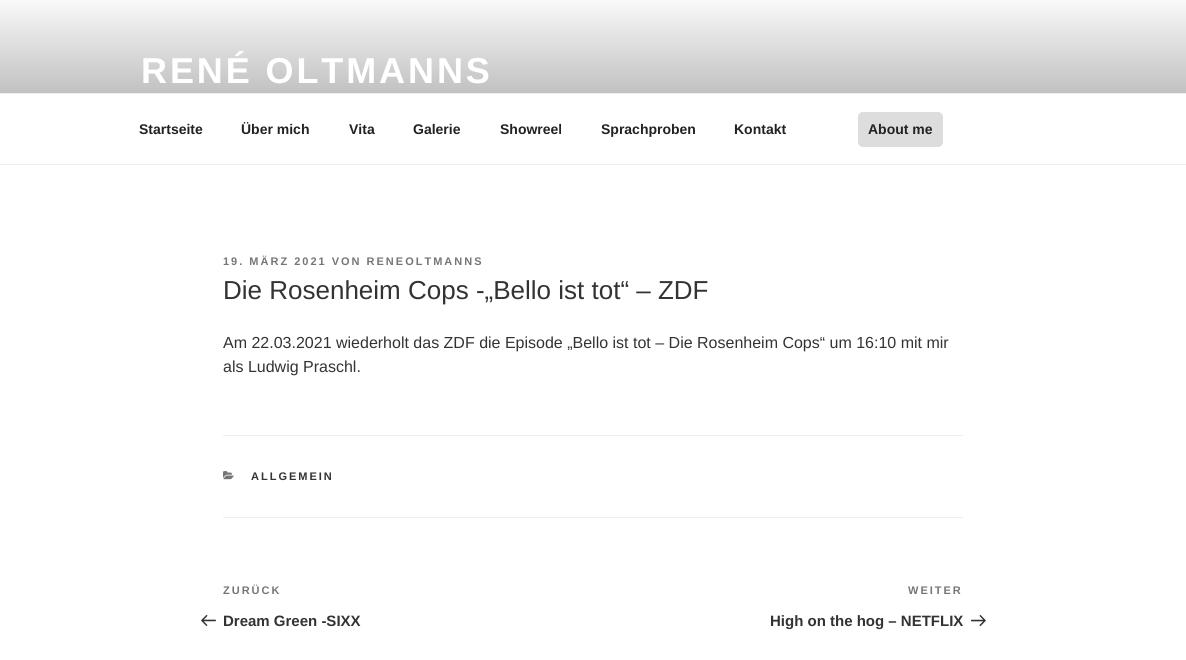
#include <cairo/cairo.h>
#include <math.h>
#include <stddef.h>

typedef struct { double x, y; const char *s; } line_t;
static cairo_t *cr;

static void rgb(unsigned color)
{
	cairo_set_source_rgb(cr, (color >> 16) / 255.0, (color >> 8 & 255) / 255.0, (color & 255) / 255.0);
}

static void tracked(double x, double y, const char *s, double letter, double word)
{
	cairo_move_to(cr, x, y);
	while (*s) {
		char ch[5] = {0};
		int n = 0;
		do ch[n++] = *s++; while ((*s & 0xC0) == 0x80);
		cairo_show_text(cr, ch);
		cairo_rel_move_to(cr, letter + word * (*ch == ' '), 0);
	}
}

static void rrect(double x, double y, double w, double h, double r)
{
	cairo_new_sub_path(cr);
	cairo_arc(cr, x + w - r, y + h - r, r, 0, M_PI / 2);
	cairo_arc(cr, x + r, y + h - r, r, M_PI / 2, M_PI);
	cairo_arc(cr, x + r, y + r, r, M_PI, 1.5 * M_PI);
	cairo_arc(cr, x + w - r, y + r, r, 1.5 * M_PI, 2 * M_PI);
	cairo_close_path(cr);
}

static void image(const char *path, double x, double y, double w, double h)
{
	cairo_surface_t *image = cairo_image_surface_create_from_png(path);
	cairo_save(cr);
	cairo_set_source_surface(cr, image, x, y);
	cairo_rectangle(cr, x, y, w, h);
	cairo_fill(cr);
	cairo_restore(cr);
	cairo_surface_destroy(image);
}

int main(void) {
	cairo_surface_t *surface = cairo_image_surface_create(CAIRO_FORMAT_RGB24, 1186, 660);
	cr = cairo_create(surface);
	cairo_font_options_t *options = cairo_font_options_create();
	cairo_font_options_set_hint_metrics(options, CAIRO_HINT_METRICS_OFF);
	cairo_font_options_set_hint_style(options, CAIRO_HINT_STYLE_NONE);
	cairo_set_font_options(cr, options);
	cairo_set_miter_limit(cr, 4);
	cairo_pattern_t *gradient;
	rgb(0xffffff);
	cairo_paint(cr);
	gradient = cairo_pattern_create_linear(593, 0, 593, 165);
	cairo_pattern_add_color_stop_rgba(gradient, 0, 0.976, 0.976, 0.976, 1);
	cairo_pattern_add_color_stop_rgba(gradient, 0.75, 0.686, 0.686, 0.686, 1);
	cairo_pattern_add_color_stop_rgba(gradient, 1, 0.686, 0.686, 0.686, 1);
	cairo_set_source(cr, gradient);
	cairo_pattern_destroy(gradient);
	cairo_rectangle(cr, 0, 0, 1186, 93);
	cairo_fill(cr);
	rgb(0xeeeeee);
	cairo_rectangle(cr, 0, 93, 1186, 1);
	cairo_fill(cr);
	cairo_rectangle(cr, 0, 164, 1186, 1);
	cairo_fill(cr);
	rgb(0xdddddd);
	rrect(858, 112, 85, 35, 5);
	cairo_fill(cr);
	rgb(0xeeeeee);
	cairo_rectangle(cr, 223, 435, 740, 1);
	cairo_fill(cr);
	cairo_rectangle(cr, 223, 517, 740, 1);
	cairo_fill(cr);
	image("img/1.png", 223, 471, 11, 9);
	image("img/2.png", 201, 615, 15, 11);
	image("img/3.png", 971, 615, 15, 12);
	cairo_select_font_face(cr, "Liberation Sans", CAIRO_FONT_SLANT_NORMAL, CAIRO_FONT_WEIGHT_BOLD);
	cairo_set_font_size(cr, 36);
	rgb(0xffffff);
	tracked(141, 83, "RENÉ OLTMANNS", 2.9, 0);
	cairo_set_font_size(cr, 14);
	rgb(0x222222);
	{
		static const line_t items[] = {
			{139, 134, "Startseite"},
			{241, 134, "Über mich"},
			{349, 134, "Vita"},
			{413, 134, "Galerie"},
			{500, 134, "Showreel"},
			{601, 134, "Sprachproben"},
			{734, 134, "Kontakt"},
			{868, 134, "About me"},
		};
		for (size_t i = 0; i < sizeof items / sizeof *items; i++) {
			cairo_move_to(cr, items[i].x, items[i].y);
			cairo_show_text(cr, items[i].s);
		}
	}
	cairo_set_font_size(cr, 11);
	rgb(0x767676);
	tracked(223, 265, "19. MÄRZ 2021 VON RENEOLTMANNS", 2, 0);
	cairo_select_font_face(cr, "Liberation Sans", CAIRO_FONT_SLANT_NORMAL, CAIRO_FONT_WEIGHT_NORMAL);
	cairo_set_font_size(cr, 26);
	rgb(0x333333);
	cairo_move_to(cr, 223, 299);
	cairo_show_text(cr, "Die Rosenheim Cops -„Bello ist tot“ – ZDF");
	cairo_set_font_size(cr, 16);
	cairo_move_to(cr, 223, 348);
	cairo_show_text(cr, "Am 22.03.2021 wiederholt das ZDF die Episode „Bello ist tot – Die Rosenheim Cops“ um 16:10 mit mir");
	cairo_move_to(cr, 223, 372);
	cairo_show_text(cr, "als Ludwig Praschl.");
	cairo_select_font_face(cr, "Liberation Sans", CAIRO_FONT_SLANT_NORMAL, CAIRO_FONT_WEIGHT_BOLD);
	cairo_set_font_size(cr, 11);
	tracked(251, 480, "ALLGEMEIN", 2, 0);
	rgb(0x767676);
	tracked(223, 594, "ZURÜCK", 2, 0);
	cairo_set_font_size(cr, 15);
	rgb(0x333333);
	cairo_move_to(cr, 223, 626);
	cairo_show_text(cr, "Dream Green -SIXX");
	cairo_set_font_size(cr, 11);
	rgb(0x767676);
	tracked(908, 594, "WEITER", 2, 0);
	cairo_set_font_size(cr, 15);
	rgb(0x333333);
	cairo_move_to(cr, 770, 626);
	cairo_show_text(cr, "High on the hog – NETFLIX");
	cairo_surface_write_to_png(surface, "page.png");
	cairo_font_options_destroy(options);
	cairo_destroy(cr);
	cairo_surface_destroy(surface);
	return 0;
}
